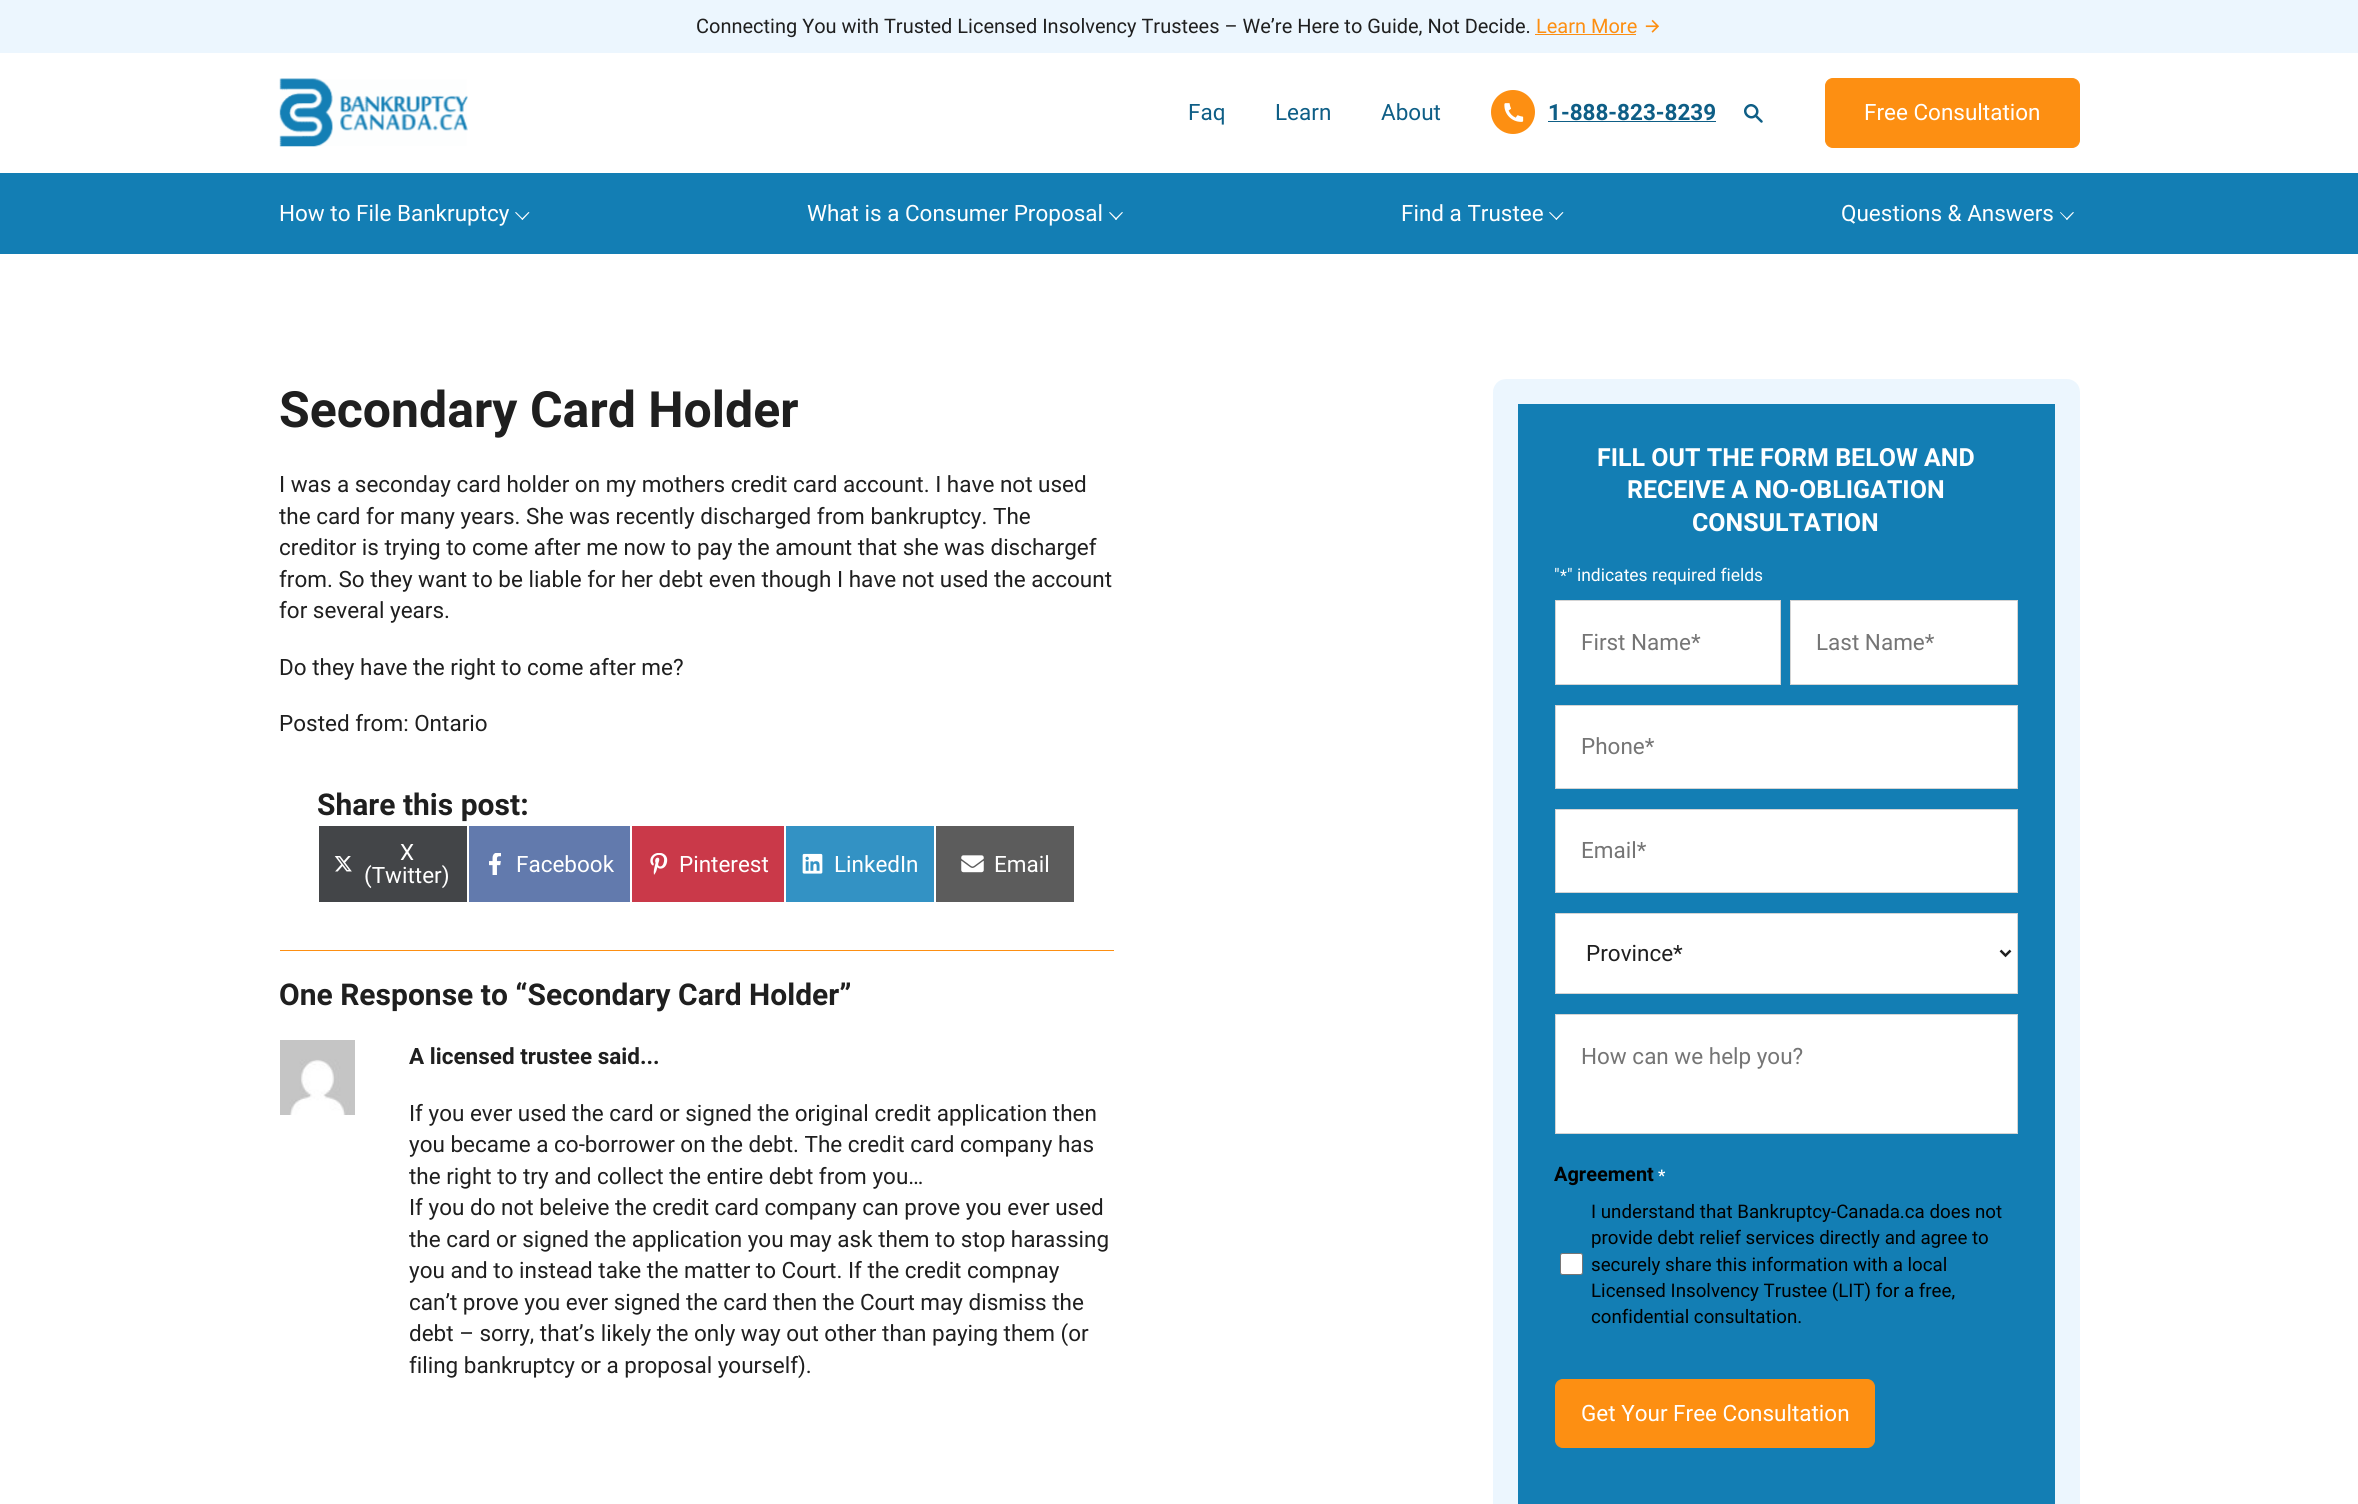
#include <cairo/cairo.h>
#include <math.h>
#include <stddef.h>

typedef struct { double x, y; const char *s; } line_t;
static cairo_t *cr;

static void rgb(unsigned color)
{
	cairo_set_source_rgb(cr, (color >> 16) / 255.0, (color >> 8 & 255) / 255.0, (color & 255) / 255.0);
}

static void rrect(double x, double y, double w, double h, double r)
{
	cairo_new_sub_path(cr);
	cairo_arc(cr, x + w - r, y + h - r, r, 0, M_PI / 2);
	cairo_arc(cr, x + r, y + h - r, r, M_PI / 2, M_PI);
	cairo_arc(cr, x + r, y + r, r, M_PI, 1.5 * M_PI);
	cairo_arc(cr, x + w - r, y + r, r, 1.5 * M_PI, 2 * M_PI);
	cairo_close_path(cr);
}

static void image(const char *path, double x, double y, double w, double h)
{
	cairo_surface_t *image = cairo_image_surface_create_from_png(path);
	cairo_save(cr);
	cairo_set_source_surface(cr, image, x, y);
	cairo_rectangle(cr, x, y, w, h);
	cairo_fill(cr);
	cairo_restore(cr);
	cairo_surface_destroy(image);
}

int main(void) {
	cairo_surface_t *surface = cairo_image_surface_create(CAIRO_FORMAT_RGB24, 2358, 1504);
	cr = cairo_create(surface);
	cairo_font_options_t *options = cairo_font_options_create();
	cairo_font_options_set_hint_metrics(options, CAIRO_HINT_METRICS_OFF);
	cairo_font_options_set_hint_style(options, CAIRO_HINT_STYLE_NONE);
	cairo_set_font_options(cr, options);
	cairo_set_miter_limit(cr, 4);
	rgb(0xffffff);
	cairo_paint(cr);
	rgb(0xecf6fe);
	cairo_rectangle(cr, 0, 0, 2358, 53);
	cairo_fill(cr);
	rgb(0xfd8f12);
	cairo_rectangle(cr, 1535, 34, 101, 1);
	cairo_fill(cr);
	image("img/1.png", 1645, 19, 15, 14);
	image("img/2.png", 279, 78, 189, 69);
	cairo_arc(cr, 1513, 112, 22, 0, 2 * M_PI);
	cairo_fill(cr);
	image("img/3.png", 1504, 103, 20, 19);
	rgb(0x0e5e86);
	cairo_rectangle(cr, 1548, 121, 168, 1);
	cairo_fill(cr);
	cairo_new_path(cr);
	cairo_move_to(cr, 1747, 107);
	cairo_curve_to(cr, 1752.5, 101.5, 1761, 110, 1755.5, 115.5);
	cairo_curve_to(cr, 1750, 121, 1741.5, 112.5, 1747, 107);
	cairo_close_path(cr);
	cairo_set_line_width(cr, 2.5);
	cairo_stroke(cr);
	cairo_new_path(cr);
	cairo_move_to(cr, 1756.5, 116.5);
	cairo_line_to(cr, 1761.5, 121.5);
	cairo_set_line_cap(cr, CAIRO_LINE_CAP_ROUND);
	cairo_stroke(cr);
	rgb(0xfd8f12);
	rrect(1825.5, 78.5, 254, 69, 7.5);
	cairo_fill_preserve(cr);
	cairo_set_line_width(cr, 1);
	cairo_set_line_cap(cr, CAIRO_LINE_CAP_BUTT);
	cairo_stroke(cr);
	rgb(0x137eb4);
	cairo_rectangle(cr, 0, 173, 2358, 81);
	cairo_fill(cr);
	rgb(0xffffff);
	cairo_new_path(cr);
	cairo_move_to(cr, 528.5, 212);
	cairo_line_to(cr, 529.5, 212.5);
	cairo_line_to(cr, 522.5, 220);
	cairo_line_to(cr, 521.5, 219);
	cairo_close_path(cr);
	cairo_fill(cr);
	cairo_new_path(cr);
	cairo_move_to(cr, 516, 212);
	cairo_line_to(cr, 523, 219);
	cairo_line_to(cr, 522.5, 220);
	cairo_line_to(cr, 515, 212.5);
	cairo_close_path(cr);
	cairo_fill(cr);
	cairo_new_path(cr);
	cairo_move_to(cr, 1122, 212);
	cairo_line_to(cr, 1123, 212.5);
	cairo_line_to(cr, 1116, 220);
	cairo_line_to(cr, 1115, 219);
	cairo_close_path(cr);
	cairo_fill(cr);
	cairo_new_path(cr);
	cairo_move_to(cr, 1110, 212);
	cairo_line_to(cr, 1117, 219);
	cairo_line_to(cr, 1116, 220);
	cairo_line_to(cr, 1109, 212.5);
	cairo_close_path(cr);
	cairo_fill(cr);
	cairo_new_path(cr);
	cairo_move_to(cr, 1562.5, 212);
	cairo_line_to(cr, 1563.5, 212.5);
	cairo_line_to(cr, 1556.5, 220);
	cairo_line_to(cr, 1555.5, 219);
	cairo_close_path(cr);
	cairo_fill(cr);
	cairo_new_path(cr);
	cairo_move_to(cr, 1550, 212);
	cairo_line_to(cr, 1557, 219);
	cairo_line_to(cr, 1556.5, 220);
	cairo_line_to(cr, 1549, 212.5);
	cairo_close_path(cr);
	cairo_fill(cr);
	cairo_new_path(cr);
	cairo_move_to(cr, 2073, 212);
	cairo_line_to(cr, 2074, 212.5);
	cairo_line_to(cr, 2067, 220);
	cairo_line_to(cr, 2066, 219);
	cairo_close_path(cr);
	cairo_fill(cr);
	cairo_new_path(cr);
	cairo_move_to(cr, 2060.5, 212);
	cairo_line_to(cr, 2067.5, 219);
	cairo_line_to(cr, 2067, 220);
	cairo_line_to(cr, 2060, 212.5);
	cairo_close_path(cr);
	cairo_fill(cr);
	rgb(0x434548);
	cairo_rectangle(cr, 319, 826, 148, 76);
	cairo_fill(cr);
	image("img/4.png", 334, 856, 18, 16);
	rgb(0x627aad);
	cairo_rectangle(cr, 469, 826, 161, 76);
	cairo_fill(cr);
	image("img/5.png", 489, 853, 12, 22);
	rgb(0xca3949);
	cairo_rectangle(cr, 632, 826, 152, 76);
	cairo_fill(cr);
	image("img/6.png", 650, 853, 18, 22);
	rgb(0x3392c4);
	cairo_rectangle(cr, 786, 826, 148, 76);
	cairo_fill(cr);
	image("img/7.png", 802, 853, 21, 21);
	rgb(0x5c5c5c);
	cairo_rectangle(cr, 936, 826, 138, 76);
	cairo_fill(cr);
	image("img/8.png", 961, 855, 23, 18);
	rgb(0xfd8f12);
	cairo_rectangle(cr, 280, 950, 834, 1);
	cairo_fill(cr);
	image("img/9.png", 280, 1040, 75, 75);
	rgb(0x137eb4);
	rrect(1505.5, 391.5, 562, 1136, 0.5);
	cairo_fill_preserve(cr);
	rgb(0xecf6fe);
	cairo_set_line_width(cr, 25);
	cairo_stroke(cr);
	rgb(0xffffff);
	cairo_rectangle(cr, 1555.5, 600.5, 225, 84);
	cairo_fill_preserve(cr);
	rgb(0xd4d4d4);
	cairo_set_line_width(cr, 1);
	cairo_stroke(cr);
	rgb(0xffffff);
	cairo_rectangle(cr, 1790.5, 600.5, 227, 84);
	cairo_fill_preserve(cr);
	rgb(0xd4d4d4);
	cairo_stroke(cr);
	rgb(0xffffff);
	cairo_rectangle(cr, 1555.5, 705.5, 462, 83);
	cairo_fill_preserve(cr);
	rgb(0xd4d4d4);
	cairo_stroke(cr);
	rgb(0xffffff);
	cairo_rectangle(cr, 1555.5, 809.5, 462, 83);
	cairo_fill_preserve(cr);
	rgb(0xd4d4d4);
	cairo_stroke(cr);
	rgb(0xffffff);
	cairo_rectangle(cr, 1555.5, 913.5, 462, 80);
	cairo_fill_preserve(cr);
	rgb(0xd4d4d4);
	cairo_stroke(cr);
	cairo_new_path(cr);
	cairo_move_to(cr, 2000.5, 950.5);
	cairo_line_to(cr, 2005.5, 955.5);
	cairo_line_to(cr, 2010.5, 950.5);
	rgb(0x1f1f1f);
	cairo_set_line_width(cr, 2.5);
	cairo_stroke(cr);
	rgb(0xffffff);
	cairo_rectangle(cr, 1555.5, 1014.5, 462, 119);
	cairo_fill_preserve(cr);
	rgb(0xd4d4d4);
	cairo_set_line_width(cr, 1);
	cairo_stroke(cr);
	rgb(0xffffff);
	rrect(1560.5, 1253.5, 22, 21, 2);
	cairo_fill_preserve(cr);
	rgb(0x767676);
	cairo_stroke(cr);
	rgb(0xfd8f12);
	rrect(1555.5, 1379.5, 319, 68, 7.5);
	cairo_fill_preserve(cr);
	cairo_stroke(cr);
	cairo_select_font_face(cr, "Roboto", CAIRO_FONT_SLANT_NORMAL, CAIRO_FONT_WEIGHT_NORMAL);
	cairo_set_font_size(cr, 20);
	rgb(0x1f1f1f);
	cairo_move_to(cr, 696, 33);
	cairo_show_text(cr, "Connecting You with Trusted Licensed Insolvency Trustees – We’re Here to Guide, Not Decide.");
	rgb(0xfd8f12);
	cairo_move_to(cr, 1536, 33);
	cairo_show_text(cr, "Learn More");
	cairo_set_font_size(cr, 22.5);
	rgb(0x0e5e86);
	{
		static const line_t items[] = {
			{1188, 120, "Faq"},
			{1275, 120, "Learn"},
			{1381, 120, "About"},
		};
		for (size_t i = 0; i < sizeof items / sizeof *items; i++) {
			cairo_move_to(cr, items[i].x, items[i].y);
			cairo_show_text(cr, items[i].s);
		}
	}
	cairo_select_font_face(cr, "Roboto", CAIRO_FONT_SLANT_NORMAL, CAIRO_FONT_WEIGHT_BOLD);
	cairo_move_to(cr, 1548, 120);
	cairo_show_text(cr, "1-888-823-8239");
	cairo_select_font_face(cr, "Roboto", CAIRO_FONT_SLANT_NORMAL, CAIRO_FONT_WEIGHT_NORMAL);
	rgb(0xffffff);
	{
		static const line_t items[] = {
			{1864, 120, "Free Consultation"},
			{279, 221, "How to File Bankruptcy"},
			{807, 221, "What is a Consumer Proposal"},
			{1401, 221, "Find a Trustee"},
			{1841, 221, "Questions & Answers"},
		};
		for (size_t i = 0; i < sizeof items / sizeof *items; i++) {
			cairo_move_to(cr, items[i].x, items[i].y);
			cairo_show_text(cr, items[i].s);
		}
	}
	cairo_select_font_face(cr, "Roboto", CAIRO_FONT_SLANT_NORMAL, CAIRO_FONT_WEIGHT_BOLD);
	cairo_set_font_size(cr, 50);
	rgb(0x1f1f1f);
	cairo_move_to(cr, 279, 427);
	cairo_show_text(cr, "Secondary Card Holder");
	cairo_select_font_face(cr, "Roboto", CAIRO_FONT_SLANT_NORMAL, CAIRO_FONT_WEIGHT_NORMAL);
	cairo_set_font_size(cr, 22.5);
	{
		static const line_t items[] = {
			{279, 492, "I was a seconday card holder on my mothers credit card account. I have not used"},
			{279, 524, "the card for many years. She was recently discharged from bankruptcy. The"},
			{279, 555, "creditor is trying to come after me now to pay the amount that she was dischargef"},
			{279, 587, "from. So they want to be liable for her debt even though I have not used the account"},
			{279, 618, "for several years."},
			{279, 675, "Do they have the right to come after me?"},
			{279, 731, "Posted from: Ontario"},
		};
		for (size_t i = 0; i < sizeof items / sizeof *items; i++) {
			cairo_move_to(cr, items[i].x, items[i].y);
			cairo_show_text(cr, items[i].s);
		}
	}
	cairo_select_font_face(cr, "Roboto", CAIRO_FONT_SLANT_NORMAL, CAIRO_FONT_WEIGHT_BOLD);
	cairo_set_font_size(cr, 30);
	cairo_move_to(cr, 317, 815);
	cairo_show_text(cr, "Share this post:");
	cairo_select_font_face(cr, "Roboto", CAIRO_FONT_SLANT_NORMAL, CAIRO_FONT_WEIGHT_NORMAL);
	cairo_set_font_size(cr, 22.5);
	rgb(0xffffff);
	{
		static const line_t items[] = {
			{400, 860, "X"},
			{364, 883, "(Twitter)"},
			{516, 872, "Facebook"},
			{679, 872, "Pinterest"},
			{834, 872, "LinkedIn"},
			{994, 872, "Email"},
		};
		for (size_t i = 0; i < sizeof items / sizeof *items; i++) {
			cairo_move_to(cr, items[i].x, items[i].y);
			cairo_show_text(cr, items[i].s);
		}
	}
	cairo_select_font_face(cr, "Roboto", CAIRO_FONT_SLANT_NORMAL, CAIRO_FONT_WEIGHT_BOLD);
	cairo_set_font_size(cr, 30);
	rgb(0x1f1f1f);
	cairo_move_to(cr, 279, 1005);
	cairo_show_text(cr, "One Response to “Secondary Card Holder”");
	cairo_set_font_size(cr, 22.5);
	cairo_move_to(cr, 409, 1064);
	cairo_show_text(cr, "A licensed trustee said...");
	cairo_select_font_face(cr, "Roboto", CAIRO_FONT_SLANT_NORMAL, CAIRO_FONT_WEIGHT_NORMAL);
	{
		static const line_t items[] = {
			{409, 1121, "If you ever used the card or signed the original credit application then"},
			{409, 1152, "you became a co-borrower on the debt. The credit card company has"},
			{409, 1184, "the right to try and collect the entire debt from you…"},
			{409, 1215, "If you do not beleive the credit card company can prove you ever used"},
			{409, 1247, "the card or signed the application you may ask them to stop harassing"},
			{409, 1278, "you and to instead take the matter to Court. If the credit compnay"},
			{409, 1310, "can’t prove you ever signed the card then the Court may dismiss the"},
			{409, 1341, "debt – sorry, that’s likely the only way out other than paying them (or"},
			{409, 1373, "filing bankruptcy or a proposal yourself)."},
		};
		for (size_t i = 0; i < sizeof items / sizeof *items; i++) {
			cairo_move_to(cr, items[i].x, items[i].y);
			cairo_show_text(cr, items[i].s);
		}
	}
	cairo_select_font_face(cr, "Roboto", CAIRO_FONT_SLANT_NORMAL, CAIRO_FONT_WEIGHT_BOLD);
	cairo_set_font_size(cr, 25);
	rgb(0xffffff);
	{
		static const line_t items[] = {
			{1597, 466, "FILL OUT THE FORM BELOW AND"},
			{1627, 498, "RECEIVE A NO-OBLIGATION"},
			{1692, 531, "CONSULTATION"},
		};
		for (size_t i = 0; i < sizeof items / sizeof *items; i++) {
			cairo_move_to(cr, items[i].x, items[i].y);
			cairo_show_text(cr, items[i].s);
		}
	}
	cairo_select_font_face(cr, "Roboto", CAIRO_FONT_SLANT_NORMAL, CAIRO_FONT_WEIGHT_NORMAL);
	cairo_set_font_size(cr, 17.5);
	cairo_move_to(cr, 1554, 581);
	cairo_show_text(cr, "\"");
	cairo_set_font_size(cr, 16);
	cairo_move_to(cr, 1560, 581);
	cairo_show_text(cr, "*");
	cairo_set_font_size(cr, 17.5);
	cairo_move_to(cr, 1567, 581);
	cairo_show_text(cr, "\" indicates required fields");
	cairo_set_font_size(cr, 22.5);
	rgb(0x757575);
	{
		static const line_t items[] = {
			{1581, 650, "First Name*"},
			{1816, 650, "Last Name*"},
			{1581, 754, "Phone*"},
			{1581, 858, "Email*"},
		};
		for (size_t i = 0; i < sizeof items / sizeof *items; i++) {
			cairo_move_to(cr, items[i].x, items[i].y);
			cairo_show_text(cr, items[i].s);
		}
	}
	rgb(0x1f1f1f);
	cairo_move_to(cr, 1586, 961);
	cairo_show_text(cr, "Province*");
	rgb(0x757575);
	cairo_move_to(cr, 1581, 1064);
	cairo_show_text(cr, "How can we help you?");
	cairo_select_font_face(cr, "Roboto", CAIRO_FONT_SLANT_NORMAL, CAIRO_FONT_WEIGHT_BOLD);
	cairo_set_font_size(cr, 20);
	rgb(0x000000);
	cairo_move_to(cr, 1554, 1181);
	cairo_show_text(cr, "Agreement");
	cairo_set_font_size(cr, 16);
	rgb(0xffffff);
	cairo_move_to(cr, 1658, 1181);
	cairo_show_text(cr, "*");
	cairo_select_font_face(cr, "Roboto", CAIRO_FONT_SLANT_NORMAL, CAIRO_FONT_WEIGHT_NORMAL);
	cairo_set_font_size(cr, 18.75);
	rgb(0x000000);
	{
		static const line_t items[] = {
			{1591, 1218, "I understand that Bankruptcy-Canada.ca does not"},
			{1591, 1244, "provide debt relief services directly and agree to"},
			{1591, 1271, "securely share this information with a local"},
			{1591, 1297, "Licensed Insolvency Trustee (LIT) for a free,"},
			{1591, 1323, "confidential consultation."},
		};
		for (size_t i = 0; i < sizeof items / sizeof *items; i++) {
			cairo_move_to(cr, items[i].x, items[i].y);
			cairo_show_text(cr, items[i].s);
		}
	}
	cairo_set_font_size(cr, 22.5);
	rgb(0xffffff);
	cairo_move_to(cr, 1581, 1421);
	cairo_show_text(cr, "Get Your Free Consultation");
	cairo_surface_write_to_png(surface, "page.png");
	cairo_font_options_destroy(options);
	cairo_destroy(cr);
	cairo_surface_destroy(surface);
	return 0;
}
